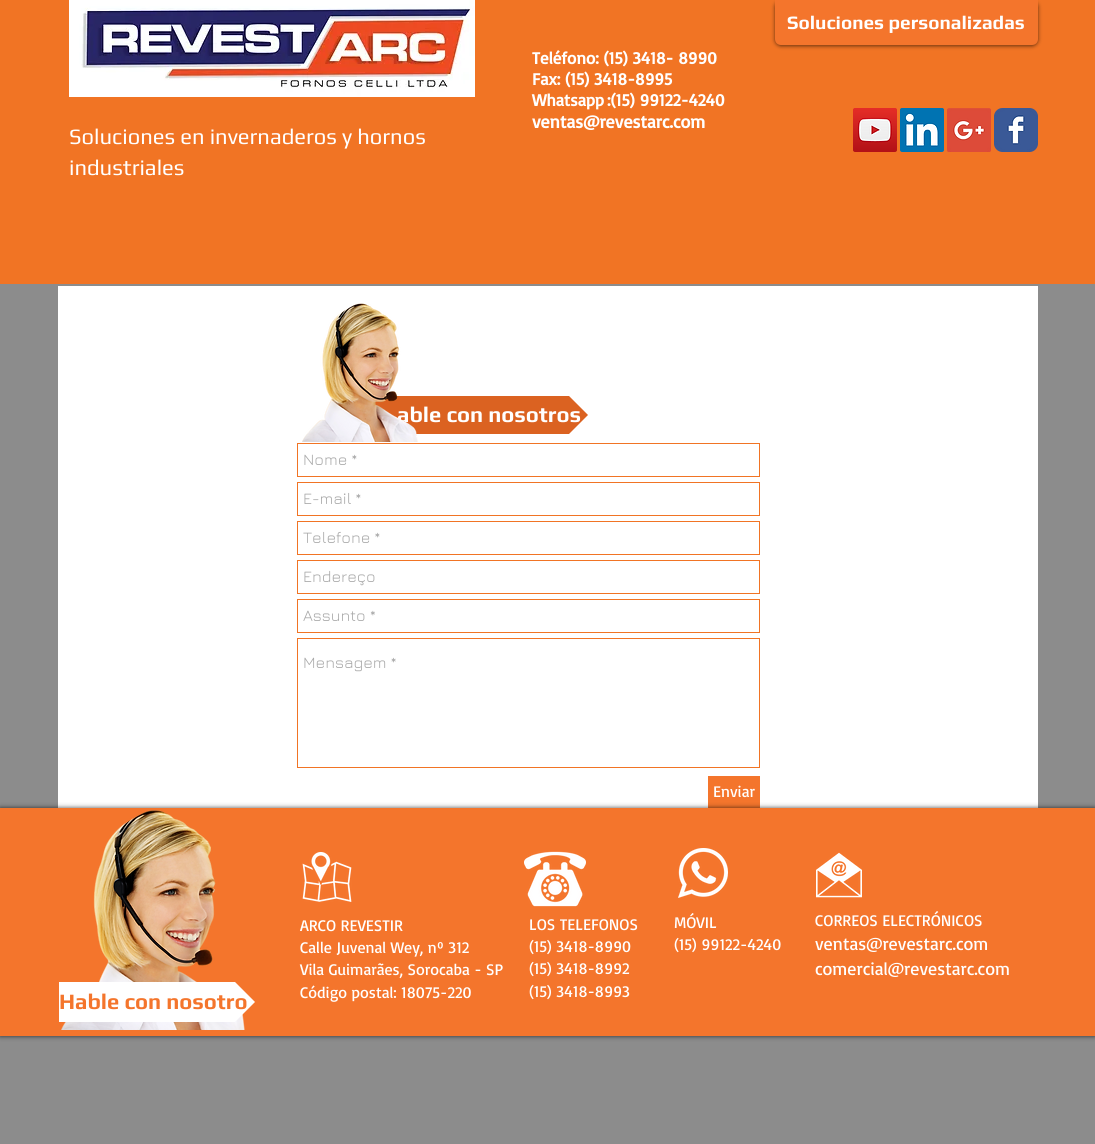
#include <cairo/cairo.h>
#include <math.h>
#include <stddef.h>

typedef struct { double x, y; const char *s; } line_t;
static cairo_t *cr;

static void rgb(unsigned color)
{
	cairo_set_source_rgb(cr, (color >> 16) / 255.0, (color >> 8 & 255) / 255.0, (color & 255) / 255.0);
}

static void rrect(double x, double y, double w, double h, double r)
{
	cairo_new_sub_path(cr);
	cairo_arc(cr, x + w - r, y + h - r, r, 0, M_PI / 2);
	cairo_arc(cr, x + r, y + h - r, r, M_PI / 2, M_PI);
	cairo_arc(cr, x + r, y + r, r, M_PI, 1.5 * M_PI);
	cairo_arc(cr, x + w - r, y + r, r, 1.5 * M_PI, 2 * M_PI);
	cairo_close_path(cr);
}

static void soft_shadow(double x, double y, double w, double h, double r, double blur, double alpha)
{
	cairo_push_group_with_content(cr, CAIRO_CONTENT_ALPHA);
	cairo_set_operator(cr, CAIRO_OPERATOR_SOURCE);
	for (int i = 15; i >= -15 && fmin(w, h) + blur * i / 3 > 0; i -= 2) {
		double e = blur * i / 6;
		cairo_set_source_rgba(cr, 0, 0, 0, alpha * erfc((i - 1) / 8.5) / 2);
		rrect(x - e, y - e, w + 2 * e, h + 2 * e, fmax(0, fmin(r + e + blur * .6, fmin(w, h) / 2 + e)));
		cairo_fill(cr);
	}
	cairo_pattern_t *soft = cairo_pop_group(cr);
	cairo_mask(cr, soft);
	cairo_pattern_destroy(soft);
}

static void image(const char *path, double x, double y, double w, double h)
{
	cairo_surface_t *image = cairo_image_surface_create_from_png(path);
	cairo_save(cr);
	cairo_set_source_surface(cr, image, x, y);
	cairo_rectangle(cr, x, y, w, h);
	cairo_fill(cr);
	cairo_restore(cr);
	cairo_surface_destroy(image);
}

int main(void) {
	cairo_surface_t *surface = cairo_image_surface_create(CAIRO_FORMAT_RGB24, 1095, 1144);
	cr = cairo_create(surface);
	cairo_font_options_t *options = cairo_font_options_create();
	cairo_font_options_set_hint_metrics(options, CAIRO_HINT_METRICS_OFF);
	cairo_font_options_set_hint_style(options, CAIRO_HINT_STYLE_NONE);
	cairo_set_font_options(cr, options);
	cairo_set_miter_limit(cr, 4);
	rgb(0x8c8c8c);
	cairo_paint(cr);
	rgb(0xf17424);
	cairo_rectangle(cr, 0, 0, 1095, 284);
	cairo_fill(cr);
	image("img/1.png", 69, 0, 406, 97);
	rgb(0x000000);
	soft_shadow(775, 1, 263, 45, 6, 2, 0.6);
	rgb(0xf4752c);
	cairo_new_path(cr);
	cairo_move_to(cr, 775, 0);
	cairo_line_to(cr, 1038, 0);
	cairo_line_to(cr, 1038, 39);
	cairo_curve_to(cr, 1038, 42.5, 1035.5, 45, 1032, 45);
	cairo_line_to(cr, 781, 45);
	cairo_curve_to(cr, 777.5, 45, 775, 42.5, 775, 39);
	cairo_close_path(cr);
	cairo_fill(cr);
	image("img/2.png", 853, 108, 44, 44);
	image("img/3.png", 900, 108, 44, 44);
	image("img/4.png", 947, 108, 44, 44);
	image("img/5.png", 994, 108, 44, 44);
	rgb(0xffffff);
	cairo_rectangle(cr, 58, 286, 980, 522);
	cairo_fill(cr);
	rgb(0xdb6221);
	cairo_rectangle(cr, 375, 396, 163, 38);
	cairo_fill(cr);
	cairo_save(cr);
	cairo_rectangle(cr, 375, 396, 213, 38);
	cairo_clip(cr);
	cairo_new_path(cr);
	cairo_move_to(cr, 588, 415);
	cairo_line_to(cr, 538, 415);
	cairo_line_to(cr, 538, 365);
	cairo_close_path(cr);
	cairo_move_to(cr, 538, 415);
	cairo_line_to(cr, 588, 415);
	cairo_line_to(cr, 538, 465);
	cairo_close_path(cr);
	cairo_fill(cr);
	cairo_restore(cr);
	cairo_rectangle(cr, 297.5, 443.5, 462, 33);
	rgb(0xf17424);
	cairo_set_line_width(cr, 1);
	cairo_stroke(cr);
	cairo_rectangle(cr, 297.5, 482.5, 462, 33);
	cairo_stroke(cr);
	cairo_rectangle(cr, 297.5, 521.5, 462, 33);
	cairo_stroke(cr);
	cairo_rectangle(cr, 297.5, 560.5, 462, 33);
	cairo_stroke(cr);
	cairo_rectangle(cr, 297.5, 599.5, 462, 33);
	cairo_stroke(cr);
	cairo_rectangle(cr, 297.5, 638.5, 462, 129);
	cairo_stroke(cr);
	rgb(0xf4752c);
	cairo_rectangle(cr, 708, 776, 52, 32);
	cairo_fill(cr);
	rgb(0x000000);
	soft_shadow(0, 808, 1095, 228, 0, 2.5, 0.7);
	rgb(0xf4752c);
	cairo_rectangle(cr, 0, 808, 1095, 228);
	cairo_fill(cr);
	image("img/7.png", 61, 810, 184, 220);
	image("img/8.png", 302, 852, 50, 50);
	image("img/9.png", 524, 851, 62, 56);
	image("img/10.png", 678, 848, 50, 50);
	image("img/11.png", 816, 852, 46, 46);
	rgb(0xffffff);
	cairo_rectangle(cr, 59, 982, 146, 40);
	cairo_fill(cr);
	cairo_save(cr);
	cairo_rectangle(cr, 59, 982, 196, 40);
	cairo_clip(cr);
	cairo_new_path(cr);
	cairo_move_to(cr, 255, 1002);
	cairo_line_to(cr, 205, 1002);
	cairo_line_to(cr, 205, 952);
	cairo_close_path(cr);
	cairo_move_to(cr, 205, 1002);
	cairo_line_to(cr, 255, 1002);
	cairo_line_to(cr, 205, 1052);
	cairo_close_path(cr);
	cairo_fill(cr);
	cairo_restore(cr);
	cairo_select_font_face(cr, "Play", CAIRO_FONT_SLANT_NORMAL, CAIRO_FONT_WEIGHT_BOLD);
	cairo_set_font_size(cr, 19);
	cairo_move_to(cr, 787, 29);
	cairo_show_text(cr, "Soluciones personalizadas");
	cairo_select_font_face(cr, "Play", CAIRO_FONT_SLANT_NORMAL, CAIRO_FONT_WEIGHT_NORMAL);
	cairo_set_font_size(cr, 22);
	cairo_move_to(cr, 69, 144);
	cairo_show_text(cr, "Soluciones en invernaderos y hornos");
	cairo_move_to(cr, 69, 175);
	cairo_show_text(cr, "industriales");
	cairo_select_font_face(cr, "Basic", CAIRO_FONT_SLANT_NORMAL, CAIRO_FONT_WEIGHT_BOLD);
	cairo_set_font_size(cr, 17);
	{
		static const line_t items[] = {
			{532, 64, "Teléfono: (15) 3418- 8990"},
			{532, 85, "Fax: (15) 3418-8995"},
			{532, 106, "Whatsapp"},
			{607, 106, ":(15) 99122-4240"},
		};
		for (size_t i = 0; i < sizeof items / sizeof *items; i++) {
			cairo_move_to(cr, items[i].x, items[i].y);
			cairo_show_text(cr, items[i].s);
		}
	}
	cairo_set_font_size(cr, 18);
	cairo_move_to(cr, 532, 128);
	cairo_show_text(cr, "ventas@revestarc.com");
	cairo_select_font_face(cr, "Play", CAIRO_FONT_SLANT_NORMAL, CAIRO_FONT_WEIGHT_BOLD);
	cairo_set_font_size(cr, 22);
	cairo_move_to(cr, 397, 422);
	cairo_show_text(cr, "able con nosotros");
	image("img/6.png", 302, 303, 116, 139);
	cairo_select_font_face(cr, "Jura", CAIRO_FONT_SLANT_NORMAL, CAIRO_FONT_WEIGHT_NORMAL);
	cairo_set_font_size(cr, 16);
	rgb(0xa9a9a9);
	{
		static const line_t items[] = {
			{303, 465, "Nome *"},
			{303, 504, "E-mail *"},
			{303, 543, "Telefone *"},
			{303, 582, "Endereço"},
			{303, 621, "Assunto *"},
			{303, 668, "Mensagem *"},
		};
		for (size_t i = 0; i < sizeof items / sizeof *items; i++) {
			cairo_move_to(cr, items[i].x, items[i].y);
			cairo_show_text(cr, items[i].s);
		}
	}
	cairo_select_font_face(cr, "Basic", CAIRO_FONT_SLANT_NORMAL, CAIRO_FONT_WEIGHT_NORMAL);
	rgb(0xffffff);
	cairo_move_to(cr, 713, 797);
	cairo_show_text(cr, "Enviar");
	cairo_select_font_face(cr, "Play", CAIRO_FONT_SLANT_NORMAL, CAIRO_FONT_WEIGHT_BOLD);
	cairo_set_font_size(cr, 22);
	rgb(0xf4752c);
	cairo_move_to(cr, 59, 1009);
	cairo_show_text(cr, "Hable con nosotro");
	cairo_select_font_face(cr, "Basic", CAIRO_FONT_SLANT_NORMAL, CAIRO_FONT_WEIGHT_NORMAL);
	cairo_set_font_size(cr, 16);
	rgb(0xffffff);
	{
		static const line_t items[] = {
			{300, 931, "ARCO REVESTIR"},
			{300, 953, "Calle Juvenal Wey, nº 312"},
			{300, 975, "Vila Guimarães, Sorocaba - SP"},
			{300, 998, "Código postal: 18075-220"},
			{529, 930, "LOS TELEFONOS"},
			{529, 952, "(15) 3418-8990"},
			{529, 974, "(15) 3418-8992"},
			{529, 997, "(15) 3418-8993"},
			{674, 928, "MÓVIL"},
			{674, 950, "(15) 99122-4240"},
			{815, 926, "CORREOS ELECTRÓNICOS"},
		};
		for (size_t i = 0; i < sizeof items / sizeof *items; i++) {
			cairo_move_to(cr, items[i].x, items[i].y);
			cairo_show_text(cr, items[i].s);
		}
	}
	cairo_set_font_size(cr, 18);
	cairo_move_to(cr, 815, 950);
	cairo_show_text(cr, "ventas@revestarc.com");
	cairo_move_to(cr, 815, 975);
	cairo_show_text(cr, "comercial@revestarc.com");
	cairo_surface_write_to_png(surface, "page.png");
	cairo_font_options_destroy(options);
	cairo_destroy(cr);
	cairo_surface_destroy(surface);
	return 0;
}
